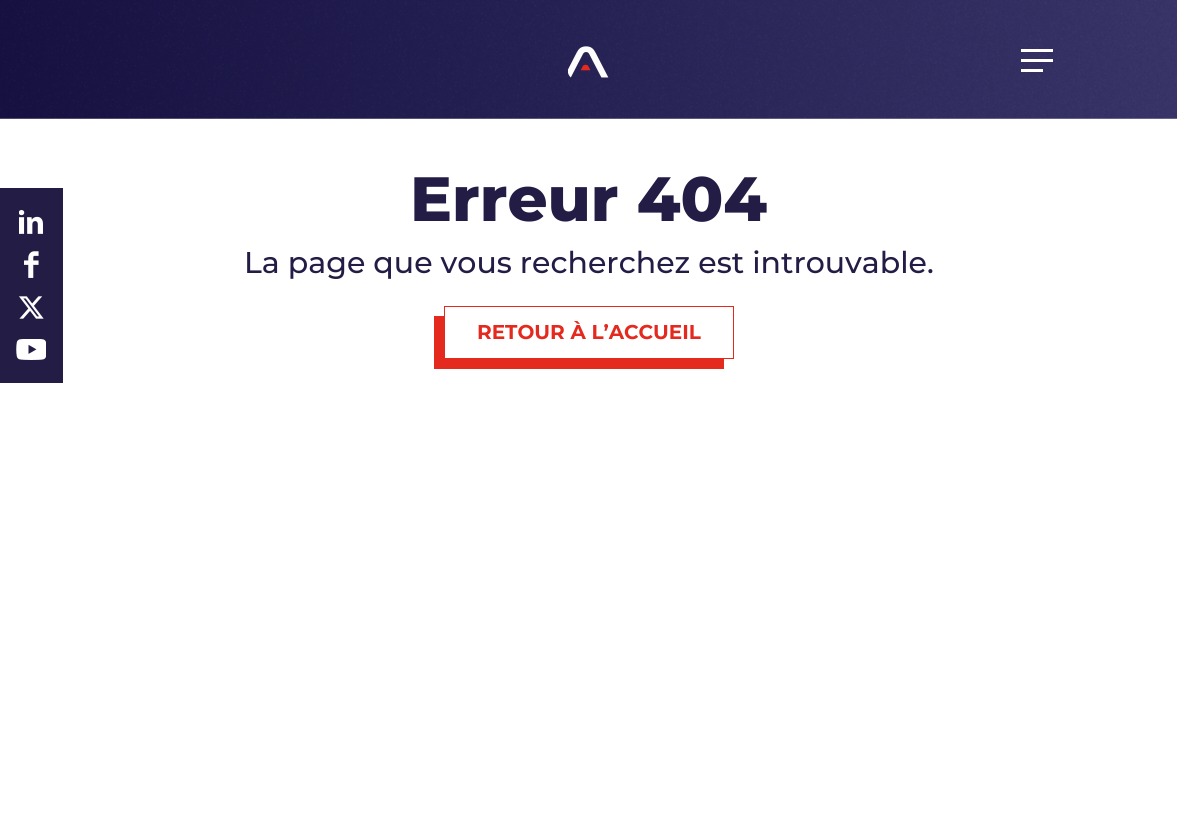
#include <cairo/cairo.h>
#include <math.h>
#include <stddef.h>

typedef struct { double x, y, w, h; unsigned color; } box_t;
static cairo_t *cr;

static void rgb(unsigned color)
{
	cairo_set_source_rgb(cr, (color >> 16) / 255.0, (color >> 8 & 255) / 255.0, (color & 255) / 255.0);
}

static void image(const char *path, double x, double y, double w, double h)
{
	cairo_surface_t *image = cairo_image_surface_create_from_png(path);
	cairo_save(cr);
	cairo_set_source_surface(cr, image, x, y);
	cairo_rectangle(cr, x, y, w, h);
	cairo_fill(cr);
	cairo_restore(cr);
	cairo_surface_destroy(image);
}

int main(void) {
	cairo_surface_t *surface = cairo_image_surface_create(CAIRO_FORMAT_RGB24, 1177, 829);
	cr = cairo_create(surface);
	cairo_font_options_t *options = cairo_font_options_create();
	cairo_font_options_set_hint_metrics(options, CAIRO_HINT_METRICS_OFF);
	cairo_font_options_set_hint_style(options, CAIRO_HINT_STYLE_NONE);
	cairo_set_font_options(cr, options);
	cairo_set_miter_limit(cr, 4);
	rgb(0xffffff);
	cairo_paint(cr);
	image("img/1.png", 0, 0, 1177, 119);
	image("img/2.png", 568, 46, 41, 32);
	{
		static const box_t items[] = {
			{1021, 49, 32, 3, 0xffffff},
			{1021, 59, 32, 3, 0xffffff},
			{1021, 69, 22, 3, 0xffffff},
			{0, 188, 63, 195, 0x231d46},
		};
		for (size_t i = 0; i < sizeof items / sizeof *items; i++) {
			rgb(items[i].color);
			cairo_rectangle(cr, items[i].x, items[i].y, items[i].w, items[i].h);
			cairo_fill(cr);
		}
	}
	image("img/3.png", 19, 210, 24, 24);
	image("img/4.png", 24, 251, 15, 27);
	image("img/5.png", 19, 296, 25, 23);
	image("img/6.png", 16, 339, 30, 21);
	rgb(0xe4291e);
	cairo_new_path(cr);
	cairo_move_to(cr, 434, 316);
	cairo_line_to(cr, 434, 369);
	cairo_line_to(cr, 724, 369);
	cairo_line_to(cr, 724, 359);
	cairo_line_to(cr, 444, 359);
	cairo_line_to(cr, 444, 316);
	cairo_close_path(cr);
	cairo_fill(cr);
	cairo_rectangle(cr, 444.5, 306.5, 289, 52);
	cairo_set_line_width(cr, 1);
	cairo_stroke(cr);
	cairo_select_font_face(cr, "Montserrat ExtraBold", CAIRO_FONT_SLANT_NORMAL, CAIRO_FONT_WEIGHT_NORMAL);
	cairo_set_font_size(cr, 62.5);
	rgb(0x231d46);
	cairo_move_to(cr, 410, 221);
	cairo_show_text(cr, "Erreur 404");
	cairo_select_font_face(cr, "Montserrat Medium", CAIRO_FONT_SLANT_NORMAL, CAIRO_FONT_WEIGHT_NORMAL);
	cairo_set_font_size(cr, 30);
	cairo_move_to(cr, 244, 273);
	cairo_show_text(cr, "La page que vous recherchez est introuvable.");
	cairo_select_font_face(cr, "Montserrat", CAIRO_FONT_SLANT_NORMAL, CAIRO_FONT_WEIGHT_BOLD);
	cairo_set_font_size(cr, 20);
	rgb(0xe4291e);
	cairo_move_to(cr, 477, 339);
	cairo_show_text(cr, "RETOUR À L’ACCUEIL");
	cairo_surface_write_to_png(surface, "page.png");
	cairo_font_options_destroy(options);
	cairo_destroy(cr);
	cairo_surface_destroy(surface);
	return 0;
}
